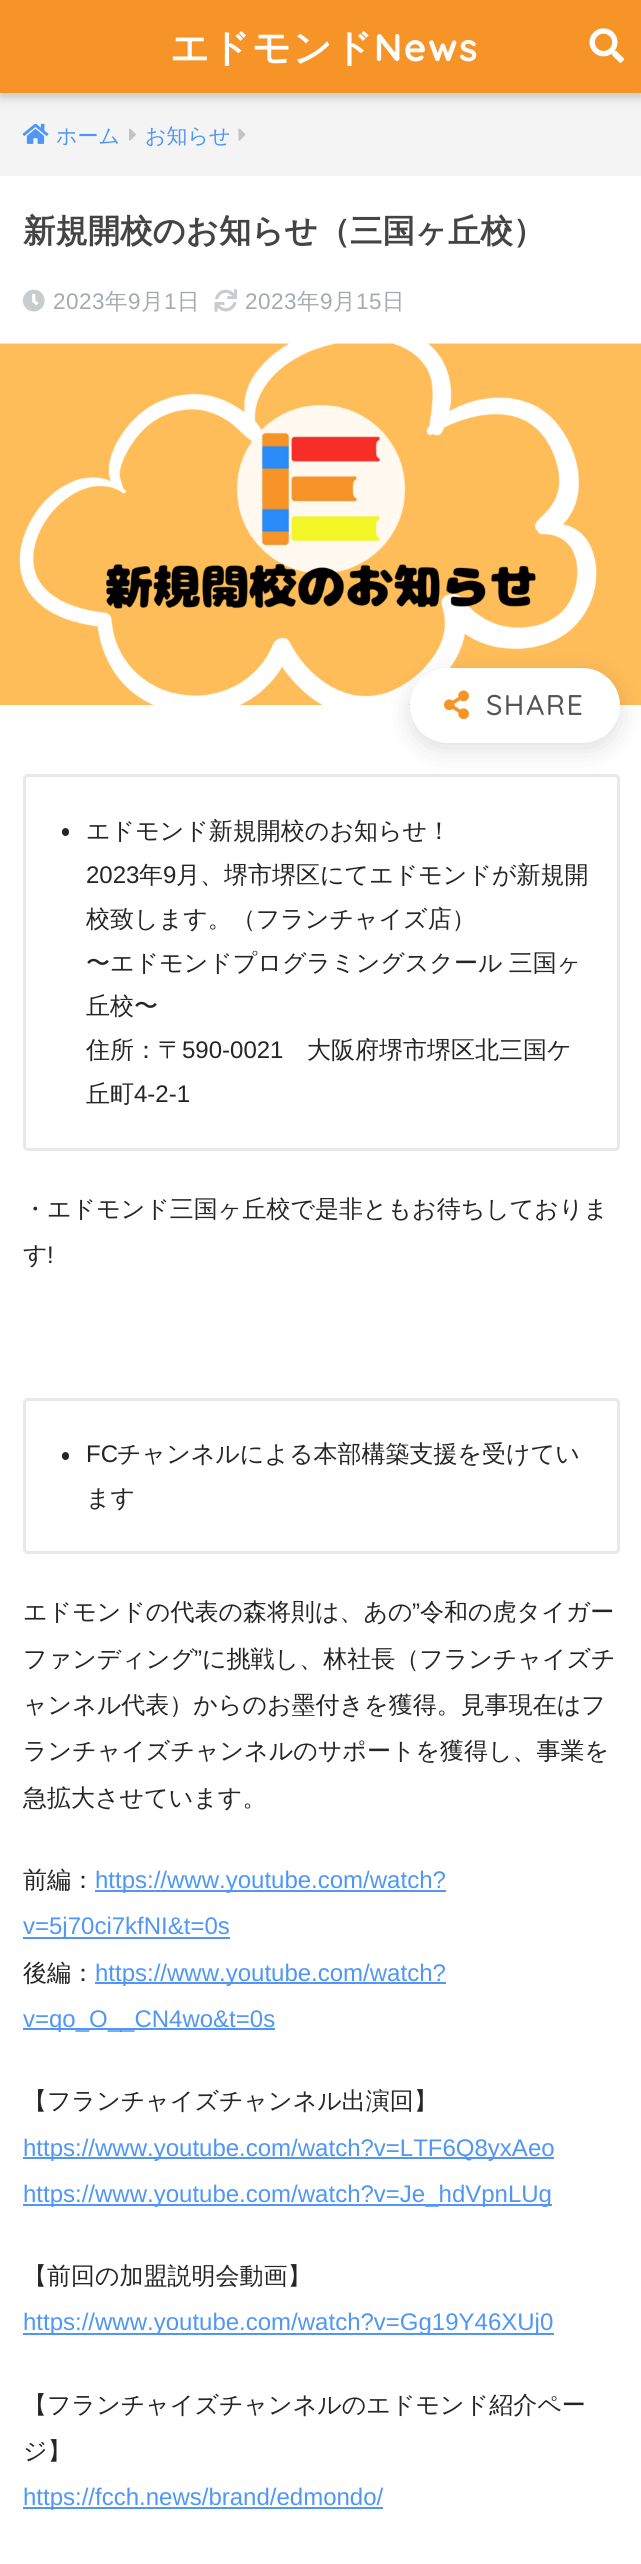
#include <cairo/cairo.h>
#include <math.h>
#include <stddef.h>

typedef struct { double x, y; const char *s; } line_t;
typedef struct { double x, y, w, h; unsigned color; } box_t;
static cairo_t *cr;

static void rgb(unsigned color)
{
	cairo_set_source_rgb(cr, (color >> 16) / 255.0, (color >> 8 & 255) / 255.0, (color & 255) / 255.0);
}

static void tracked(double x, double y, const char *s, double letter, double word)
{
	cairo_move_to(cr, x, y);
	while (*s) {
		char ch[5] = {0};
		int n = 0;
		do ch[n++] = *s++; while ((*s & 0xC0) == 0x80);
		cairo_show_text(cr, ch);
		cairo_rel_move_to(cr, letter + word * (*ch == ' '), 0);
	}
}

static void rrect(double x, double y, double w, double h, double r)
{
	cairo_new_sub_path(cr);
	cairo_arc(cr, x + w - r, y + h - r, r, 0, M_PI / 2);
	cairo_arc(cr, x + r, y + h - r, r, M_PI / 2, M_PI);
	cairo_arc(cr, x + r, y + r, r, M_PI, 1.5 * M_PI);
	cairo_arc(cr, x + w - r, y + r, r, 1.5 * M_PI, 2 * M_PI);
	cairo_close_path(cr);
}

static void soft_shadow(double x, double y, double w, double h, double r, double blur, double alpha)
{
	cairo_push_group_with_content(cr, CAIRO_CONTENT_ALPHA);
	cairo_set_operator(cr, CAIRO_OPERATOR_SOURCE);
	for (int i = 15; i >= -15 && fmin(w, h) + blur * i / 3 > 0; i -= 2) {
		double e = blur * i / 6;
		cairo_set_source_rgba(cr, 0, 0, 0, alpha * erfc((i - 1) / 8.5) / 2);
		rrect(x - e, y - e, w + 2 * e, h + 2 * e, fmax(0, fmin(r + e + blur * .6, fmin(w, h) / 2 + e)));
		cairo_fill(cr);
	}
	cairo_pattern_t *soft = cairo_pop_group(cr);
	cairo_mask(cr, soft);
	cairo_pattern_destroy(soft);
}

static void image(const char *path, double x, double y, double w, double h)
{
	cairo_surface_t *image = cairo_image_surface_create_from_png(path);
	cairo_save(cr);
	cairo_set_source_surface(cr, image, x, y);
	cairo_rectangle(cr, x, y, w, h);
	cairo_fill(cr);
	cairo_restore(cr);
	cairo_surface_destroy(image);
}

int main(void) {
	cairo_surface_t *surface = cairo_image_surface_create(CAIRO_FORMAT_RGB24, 641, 2564);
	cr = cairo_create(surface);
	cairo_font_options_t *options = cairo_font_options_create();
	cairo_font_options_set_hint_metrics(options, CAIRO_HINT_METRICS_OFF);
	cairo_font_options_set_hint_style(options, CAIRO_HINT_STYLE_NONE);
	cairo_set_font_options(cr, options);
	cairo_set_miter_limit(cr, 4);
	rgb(0xffffff);
	cairo_paint(cr);
	rgb(0xf4f4f4);
	cairo_rectangle(cr, 0, 93, 641, 83);
	cairo_fill(cr);
	rgb(0x000000);
	soft_shadow(0, 5, 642, 93, 0, 4.5, 0.18);
	rgb(0xf79428);
	cairo_rectangle(cr, 0, 0, 641, 93);
	cairo_fill(cr);
	image("img/1.png", 589, 28, 35, 35);
	image("img/2.png", 22, 123, 27, 21);
	image("img/3.png", 129, 128, 7, 13);
	image("img/4.png", 238, 128, 8, 13);
	image("img/5.png", 22, 289, 23, 23);
	image("img/6.png", 214, 289, 23, 23);
	image("img/7.png", 0, 343, 641, 362);
	rrect(24.5, 775.5, 594, 374, 3.5);
	rgb(0xe8e8e8);
	cairo_set_line_width(cr, 3);
	cairo_stroke(cr);
	rgb(0x000000);
	soft_shadow(413, 678, 204, 69, 34.5, 13.5, 0.15);
	rgb(0xffffff);
	rrect(410, 668, 210, 75, 37.5);
	cairo_fill(cr);
	image("img/8.png", 444, 690, 25, 30);
	rgb(0x252525);
	rrect(62, 828, 7, 8, 3.5);
	cairo_fill(cr);
	rrect(24.5, 1399.5, 594, 153, 3.5);
	rgb(0xe8e8e8);
	cairo_stroke(cr);
	rgb(0x252525);
	rrect(62, 1452, 7, 8, 3.5);
	cairo_fill(cr);
	{
		static const box_t items[] = {
			{95, 1890, 351, 2, 0x4f96f6},
			{23, 1937, 207, 2, 0x4f96f6},
			{95, 1982, 351, 2, 0x4f96f6},
			{23, 2028, 252, 2, 0x4f96f6},
			{23, 2157, 531, 2, 0x4f96f6},
			{23, 2204, 529, 2, 0x4f96f6},
			{23, 2333, 531, 2, 0x4f96f6},
			{23, 2507, 360, 2, 0x4f96f6},
		};
		for (size_t i = 0; i < sizeof items / sizeof *items; i++) {
			rgb(items[i].color);
			cairo_rectangle(cr, items[i].x, items[i].y, items[i].w, items[i].h);
			cairo_fill(cr);
		}
	}
	cairo_select_font_face(cr, "WenQuanYi Zen Hei", CAIRO_FONT_SLANT_NORMAL, CAIRO_FONT_WEIGHT_BOLD);
	cairo_set_font_size(cr, 38.5);
	rgb(0xffffff);
	tracked(170, 61, "エドモンド", 1.5, 0);
	cairo_select_font_face(cr, "Quicksand", CAIRO_FONT_SLANT_NORMAL, CAIRO_FONT_WEIGHT_BOLD);
	tracked(374, 61, "News", 1.5, 0);
	cairo_select_font_face(cr, "WenQuanYi Zen Hei Medium", CAIRO_FONT_SLANT_NORMAL, CAIRO_FONT_WEIGHT_NORMAL);
	cairo_set_font_size(cr, 21);
	rgb(0x4f96f6);
	cairo_move_to(cr, 56, 143);
	cairo_show_text(cr, "ホーム");
	cairo_move_to(cr, 145, 143);
	cairo_show_text(cr, "お知らせ");
	cairo_select_font_face(cr, "WenQuanYi Zen Hei", CAIRO_FONT_SLANT_NORMAL, CAIRO_FONT_WEIGHT_BOLD);
	cairo_set_font_size(cr, 32.4);
	rgb(0x444444);
	cairo_move_to(cr, 23, 242);
	cairo_show_text(cr, "新規開校のお知らせ（三国ヶ丘校）");
	cairo_select_font_face(cr, "Liberation Sans", CAIRO_FONT_SLANT_NORMAL, CAIRO_FONT_WEIGHT_NORMAL);
	cairo_set_font_size(cr, 22.5);
	rgb(0xa5aaaf);
	tracked(53, 309, "2023", 0.5, 0);
	cairo_select_font_face(cr, "WenQuanYi Zen Hei Medium", CAIRO_FONT_SLANT_NORMAL, CAIRO_FONT_WEIGHT_NORMAL);
	tracked(105, 309, "年", 0.5, 0);
	cairo_select_font_face(cr, "Liberation Sans", CAIRO_FONT_SLANT_NORMAL, CAIRO_FONT_WEIGHT_NORMAL);
	tracked(128, 309, "9", 0.5, 0);
	cairo_select_font_face(cr, "WenQuanYi Zen Hei Medium", CAIRO_FONT_SLANT_NORMAL, CAIRO_FONT_WEIGHT_NORMAL);
	tracked(141, 309, "月", 0.5, 0);
	cairo_select_font_face(cr, "Liberation Sans", CAIRO_FONT_SLANT_NORMAL, CAIRO_FONT_WEIGHT_NORMAL);
	tracked(164, 309, "1", 0.5, 0);
	cairo_select_font_face(cr, "WenQuanYi Zen Hei Medium", CAIRO_FONT_SLANT_NORMAL, CAIRO_FONT_WEIGHT_NORMAL);
	tracked(177, 309, "日", 0.5, 0);
	cairo_select_font_face(cr, "Liberation Sans", CAIRO_FONT_SLANT_NORMAL, CAIRO_FONT_WEIGHT_NORMAL);
	tracked(245, 309, "2023", 0.5, 0);
	cairo_select_font_face(cr, "WenQuanYi Zen Hei Medium", CAIRO_FONT_SLANT_NORMAL, CAIRO_FONT_WEIGHT_NORMAL);
	tracked(297, 309, "年", 0.5, 0);
	cairo_select_font_face(cr, "Liberation Sans", CAIRO_FONT_SLANT_NORMAL, CAIRO_FONT_WEIGHT_NORMAL);
	tracked(320, 309, "9", 0.5, 0);
	cairo_select_font_face(cr, "WenQuanYi Zen Hei Medium", CAIRO_FONT_SLANT_NORMAL, CAIRO_FONT_WEIGHT_NORMAL);
	tracked(333, 309, "月", 0.5, 0);
	cairo_select_font_face(cr, "Liberation Sans", CAIRO_FONT_SLANT_NORMAL, CAIRO_FONT_WEIGHT_NORMAL);
	tracked(356, 309, "15", 0.5, 0);
	cairo_select_font_face(cr, "WenQuanYi Zen Hei Medium", CAIRO_FONT_SLANT_NORMAL, CAIRO_FONT_WEIGHT_NORMAL);
	tracked(382, 309, "日", 0.5, 0);
	cairo_select_font_face(cr, "Quicksand Medium", CAIRO_FONT_SLANT_NORMAL, CAIRO_FONT_WEIGHT_NORMAL);
	cairo_set_font_size(cr, 28.5);
	rgb(0x555555);
	tracked(486, 715, "SHARE", 1.5, 0);
	cairo_select_font_face(cr, "WenQuanYi Zen Hei Medium", CAIRO_FONT_SLANT_NORMAL, CAIRO_FONT_WEIGHT_NORMAL);
	cairo_set_font_size(cr, 24);
	rgb(0x252525);
	cairo_move_to(cr, 86, 839);
	cairo_show_text(cr, "エドモンド新規開校のお知らせ！");
	cairo_select_font_face(cr, "Liberation Sans", CAIRO_FONT_SLANT_NORMAL, CAIRO_FONT_WEIGHT_NORMAL);
	cairo_move_to(cr, 86, 883);
	cairo_show_text(cr, "2023");
	cairo_select_font_face(cr, "WenQuanYi Zen Hei Medium", CAIRO_FONT_SLANT_NORMAL, CAIRO_FONT_WEIGHT_NORMAL);
	cairo_move_to(cr, 139, 883);
	cairo_show_text(cr, "年");
	cairo_select_font_face(cr, "Liberation Sans", CAIRO_FONT_SLANT_NORMAL, CAIRO_FONT_WEIGHT_NORMAL);
	cairo_move_to(cr, 163, 883);
	cairo_show_text(cr, "9");
	cairo_select_font_face(cr, "WenQuanYi Zen Hei Medium", CAIRO_FONT_SLANT_NORMAL, CAIRO_FONT_WEIGHT_NORMAL);
	cairo_move_to(cr, 176, 883);
	cairo_show_text(cr, "月、堺市堺区にてエドモンドが新規開");
	cairo_move_to(cr, 86, 927);
	cairo_show_text(cr, "校致します。（フランチャイズ店）");
	tracked(86, 971, "〜エドモンドプログラミングスクール 三国ヶ", 0, -1);
	cairo_move_to(cr, 86, 1014);
	cairo_show_text(cr, "丘校〜");
	cairo_move_to(cr, 86, 1058);
	cairo_show_text(cr, "住所：〒");
	cairo_select_font_face(cr, "Liberation Sans", CAIRO_FONT_SLANT_NORMAL, CAIRO_FONT_WEIGHT_NORMAL);
	cairo_move_to(cr, 182, 1058);
	cairo_show_text(cr, "590-0021");
	cairo_select_font_face(cr, "WenQuanYi Zen Hei Medium", CAIRO_FONT_SLANT_NORMAL, CAIRO_FONT_WEIGHT_NORMAL);
	cairo_move_to(cr, 307, 1058);
	cairo_show_text(cr, "大阪府堺市堺区北三国ケ");
	cairo_move_to(cr, 86, 1102);
	cairo_show_text(cr, "丘町");
	cairo_select_font_face(cr, "Liberation Sans", CAIRO_FONT_SLANT_NORMAL, CAIRO_FONT_WEIGHT_NORMAL);
	cairo_move_to(cr, 134, 1102);
	cairo_show_text(cr, "4-2-1");
	cairo_select_font_face(cr, "WenQuanYi Zen Hei Medium", CAIRO_FONT_SLANT_NORMAL, CAIRO_FONT_WEIGHT_NORMAL);
	cairo_move_to(cr, 23, 1217);
	cairo_show_text(cr, "・エドモンド三国ヶ丘校で是非ともお待ちしておりま");
	cairo_move_to(cr, 23, 1263);
	cairo_show_text(cr, "す");
	cairo_select_font_face(cr, "Liberation Sans", CAIRO_FONT_SLANT_NORMAL, CAIRO_FONT_WEIGHT_NORMAL);
	cairo_move_to(cr, 47, 1263);
	cairo_show_text(cr, "!");
	cairo_move_to(cr, 86, 1462);
	cairo_show_text(cr, "FC");
	cairo_select_font_face(cr, "WenQuanYi Zen Hei Medium", CAIRO_FONT_SLANT_NORMAL, CAIRO_FONT_WEIGHT_NORMAL);
	{
		static const line_t items[] = {
			{117, 1462, "チャンネルによる本部構築支援を受けてい"},
			{86, 1506, "ます"},
			{23, 1620, "エドモンドの代表の森将則は、あの"},
		};
		for (size_t i = 0; i < sizeof items / sizeof *items; i++) {
			cairo_move_to(cr, items[i].x, items[i].y);
			cairo_show_text(cr, items[i].s);
		}
	}
	cairo_select_font_face(cr, "Liberation Sans", CAIRO_FONT_SLANT_NORMAL, CAIRO_FONT_WEIGHT_NORMAL);
	cairo_move_to(cr, 412, 1620);
	cairo_show_text(cr, "”");
	cairo_select_font_face(cr, "WenQuanYi Zen Hei Medium", CAIRO_FONT_SLANT_NORMAL, CAIRO_FONT_WEIGHT_NORMAL);
	cairo_move_to(cr, 420, 1620);
	cairo_show_text(cr, "令和の虎タイガー");
	cairo_move_to(cr, 23, 1667);
	cairo_show_text(cr, "ファンディング");
	cairo_select_font_face(cr, "Liberation Sans", CAIRO_FONT_SLANT_NORMAL, CAIRO_FONT_WEIGHT_NORMAL);
	cairo_move_to(cr, 194, 1667);
	cairo_show_text(cr, "”");
	cairo_select_font_face(cr, "WenQuanYi Zen Hei Medium", CAIRO_FONT_SLANT_NORMAL, CAIRO_FONT_WEIGHT_NORMAL);
	{
		static const line_t items[] = {
			{202, 1667, "に挑戦し、林社長（フランチャイズチ"},
			{23, 1713, "ャンネル代表）からのお墨付きを獲得。見事現在はフ"},
			{23, 1759, "ランチャイズチャンネルのサポートを獲得し、事業を"},
			{23, 1806, "急拡大させています。"},
			{23, 1888, "前編："},
		};
		for (size_t i = 0; i < sizeof items / sizeof *items; i++) {
			cairo_move_to(cr, items[i].x, items[i].y);
			cairo_show_text(cr, items[i].s);
		}
	}
	cairo_select_font_face(cr, "Liberation Sans", CAIRO_FONT_SLANT_NORMAL, CAIRO_FONT_WEIGHT_NORMAL);
	rgb(0x4f96f6);
	cairo_move_to(cr, 95, 1888);
	cairo_show_text(cr, "https://www.youtube.com/watch?");
	cairo_move_to(cr, 23, 1934);
	cairo_show_text(cr, "v=5j70ci7kfNI&t=0s");
	cairo_select_font_face(cr, "WenQuanYi Zen Hei Medium", CAIRO_FONT_SLANT_NORMAL, CAIRO_FONT_WEIGHT_NORMAL);
	rgb(0x252525);
	cairo_move_to(cr, 23, 1981);
	cairo_show_text(cr, "後編：");
	cairo_select_font_face(cr, "Liberation Sans", CAIRO_FONT_SLANT_NORMAL, CAIRO_FONT_WEIGHT_NORMAL);
	rgb(0x4f96f6);
	cairo_move_to(cr, 95, 1981);
	cairo_show_text(cr, "https://www.youtube.com/watch?");
	cairo_move_to(cr, 23, 2027);
	cairo_show_text(cr, "v=qo_O__CN4wo&t=0s");
	cairo_select_font_face(cr, "WenQuanYi Zen Hei Medium", CAIRO_FONT_SLANT_NORMAL, CAIRO_FONT_WEIGHT_NORMAL);
	rgb(0x252525);
	cairo_move_to(cr, 23, 2109);
	cairo_show_text(cr, "【フランチャイズチャンネル出演回】");
	cairo_select_font_face(cr, "Liberation Sans", CAIRO_FONT_SLANT_NORMAL, CAIRO_FONT_WEIGHT_NORMAL);
	rgb(0x4f96f6);
	cairo_move_to(cr, 23, 2156);
	cairo_show_text(cr, "https://www.youtube.com/watch?v=LTF6Q8yxAeo");
	cairo_move_to(cr, 23, 2202);
	cairo_show_text(cr, "https://www.youtube.com/watch?v=Je_hdVpnLUg");
	cairo_select_font_face(cr, "WenQuanYi Zen Hei Medium", CAIRO_FONT_SLANT_NORMAL, CAIRO_FONT_WEIGHT_NORMAL);
	rgb(0x252525);
	cairo_move_to(cr, 23, 2284);
	cairo_show_text(cr, "【前回の加盟説明会動画】");
	cairo_select_font_face(cr, "Liberation Sans", CAIRO_FONT_SLANT_NORMAL, CAIRO_FONT_WEIGHT_NORMAL);
	rgb(0x4f96f6);
	cairo_move_to(cr, 23, 2330);
	cairo_show_text(cr, "https://www.youtube.com/watch?v=Gg19Y46XUj0");
	cairo_select_font_face(cr, "WenQuanYi Zen Hei Medium", CAIRO_FONT_SLANT_NORMAL, CAIRO_FONT_WEIGHT_NORMAL);
	rgb(0x252525);
	cairo_move_to(cr, 23, 2413);
	cairo_show_text(cr, "【フランチャイズチャンネルのエドモンド紹介ペー");
	cairo_move_to(cr, 23, 2459);
	cairo_show_text(cr, "ジ】");
	cairo_select_font_face(cr, "Liberation Sans", CAIRO_FONT_SLANT_NORMAL, CAIRO_FONT_WEIGHT_NORMAL);
	rgb(0x4f96f6);
	cairo_move_to(cr, 23, 2505);
	cairo_show_text(cr, "https://fcch.news/brand/edmondo/");
	cairo_surface_write_to_png(surface, "page.png");
	cairo_font_options_destroy(options);
	cairo_destroy(cr);
	cairo_surface_destroy(surface);
	return 0;
}
